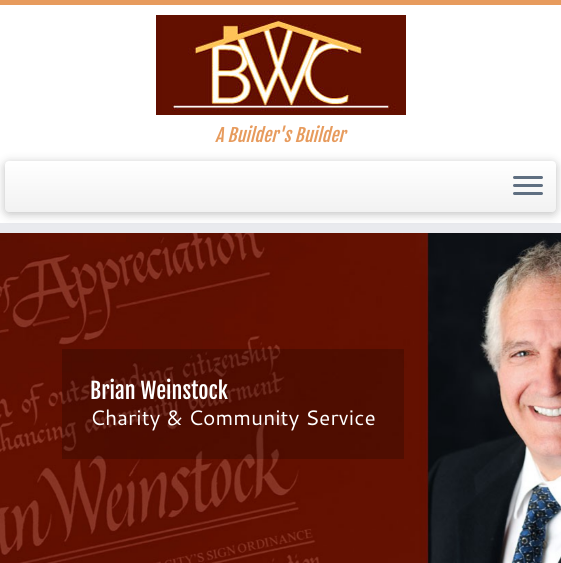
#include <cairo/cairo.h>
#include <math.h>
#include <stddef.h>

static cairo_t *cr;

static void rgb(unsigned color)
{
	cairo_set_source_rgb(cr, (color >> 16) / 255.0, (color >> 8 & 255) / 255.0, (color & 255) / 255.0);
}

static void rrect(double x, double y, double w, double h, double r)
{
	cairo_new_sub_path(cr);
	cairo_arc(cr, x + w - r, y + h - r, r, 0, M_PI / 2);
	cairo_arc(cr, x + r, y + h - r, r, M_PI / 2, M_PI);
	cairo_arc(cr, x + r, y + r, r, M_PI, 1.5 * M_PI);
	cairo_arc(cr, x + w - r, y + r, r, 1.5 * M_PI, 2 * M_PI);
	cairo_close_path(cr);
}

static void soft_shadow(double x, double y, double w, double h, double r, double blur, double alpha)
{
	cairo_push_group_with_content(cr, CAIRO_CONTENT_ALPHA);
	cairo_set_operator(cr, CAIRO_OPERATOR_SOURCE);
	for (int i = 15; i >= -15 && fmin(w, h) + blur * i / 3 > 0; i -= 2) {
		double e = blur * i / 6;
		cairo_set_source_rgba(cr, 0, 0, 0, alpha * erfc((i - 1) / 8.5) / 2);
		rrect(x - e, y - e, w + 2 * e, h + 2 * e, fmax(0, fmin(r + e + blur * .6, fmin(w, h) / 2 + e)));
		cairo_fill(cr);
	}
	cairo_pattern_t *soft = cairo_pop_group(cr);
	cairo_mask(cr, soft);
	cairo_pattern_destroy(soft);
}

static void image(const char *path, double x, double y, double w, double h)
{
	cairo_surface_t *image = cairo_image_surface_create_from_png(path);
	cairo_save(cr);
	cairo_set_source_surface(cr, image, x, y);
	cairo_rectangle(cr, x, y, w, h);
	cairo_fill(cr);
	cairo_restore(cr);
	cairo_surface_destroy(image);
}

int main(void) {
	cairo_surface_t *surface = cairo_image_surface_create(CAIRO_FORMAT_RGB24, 561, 563);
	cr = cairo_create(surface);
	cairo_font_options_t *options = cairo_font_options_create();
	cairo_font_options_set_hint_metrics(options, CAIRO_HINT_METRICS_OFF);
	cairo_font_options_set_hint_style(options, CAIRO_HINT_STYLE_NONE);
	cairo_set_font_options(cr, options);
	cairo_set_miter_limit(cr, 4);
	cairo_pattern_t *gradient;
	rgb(0xffffff);
	cairo_paint(cr);
	rgb(0xe79b5d);
	cairo_rectangle(cr, 0, 0, 561, 5);
	cairo_fill(cr);
	rgb(0xe9eaee);
	cairo_rectangle(cr, 0, 223, 561, 10);
	cairo_fill(cr);
	image("img/1.png", 156, 15, 250, 100);
	rgb(0x000000);
	soft_shadow(5, 163, 551, 51, 4, 5, 0.25);
	gradient = cairo_pattern_create_linear(281, 161, 281, 212);
	cairo_pattern_add_color_stop_rgba(gradient, 0, 1, 1, 1, 1);
	cairo_pattern_add_color_stop_rgba(gradient, 1, 0.949, 0.949, 0.949, 1);
	cairo_set_source(cr, gradient);
	cairo_pattern_destroy(gradient);
	rrect(5, 161, 551, 51, 4);
	cairo_fill(cr);
	rgb(0x5f6f81);
	rrect(513, 176, 30, 3, 1.5);
	cairo_fill(cr);
	rrect(513, 184, 30, 3, 1.5);
	cairo_fill(cr);
	rrect(513, 192, 30, 3, 1.5);
	cairo_fill(cr);
	image("img/2.png", 0, 233, 561, 330);
	cairo_set_source_rgba(cr, 0, 0, 0, 0.2);
	cairo_rectangle(cr, 62, 349, 342, 110);
	cairo_fill(cr);
	cairo_select_font_face(cr, "Fjalla One", CAIRO_FONT_SLANT_ITALIC, CAIRO_FONT_WEIGHT_NORMAL);
	cairo_set_font_size(cr, 18);
	rgb(0xe79b5d);
	cairo_move_to(cr, 215, 142);
	cairo_show_text(cr, "A Builder's Builder");
	cairo_select_font_face(cr, "Fjalla One", CAIRO_FONT_SLANT_NORMAL, CAIRO_FONT_WEIGHT_NORMAL);
	cairo_set_font_size(cr, 22);
	rgb(0xffffff);
	cairo_move_to(cr, 90, 399);
	cairo_show_text(cr, "Brian Weinstock");
	cairo_select_font_face(cr, "Cantarell", CAIRO_FONT_SLANT_NORMAL, CAIRO_FONT_WEIGHT_NORMAL);
	cairo_set_font_size(cr, 21);
	cairo_move_to(cr, 90, 425);
	cairo_show_text(cr, "Charity & Community Service");
	cairo_surface_write_to_png(surface, "page.png");
	cairo_font_options_destroy(options);
	cairo_destroy(cr);
	cairo_surface_destroy(surface);
	return 0;
}
